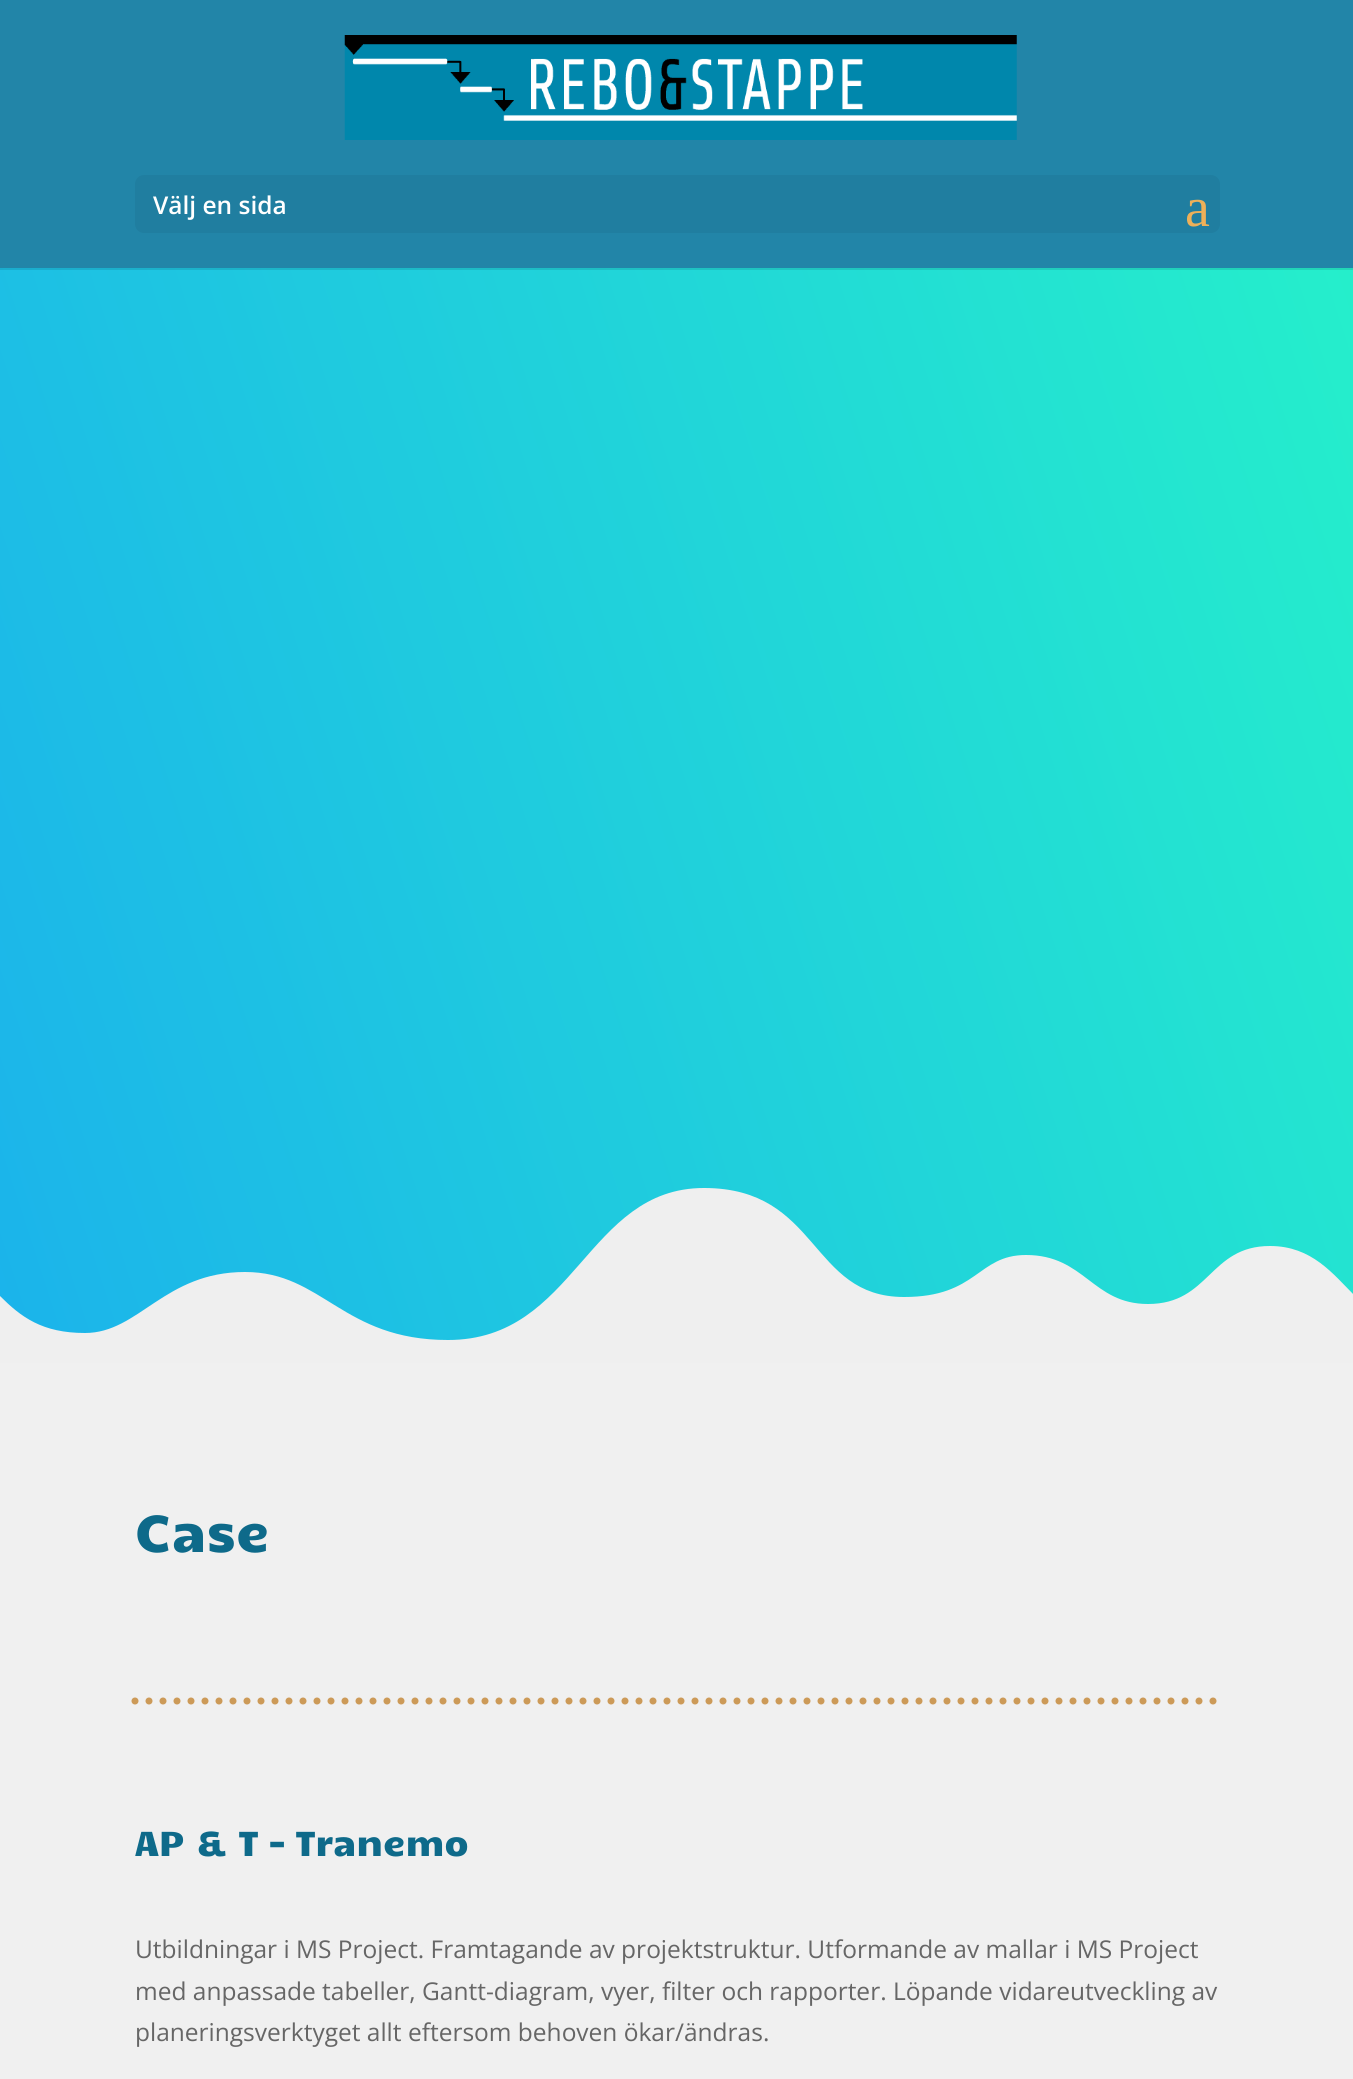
#include <cairo/cairo.h>
#include <math.h>
#include <stddef.h>

typedef struct { double x, y; const char *s; } line_t;
static cairo_t *cr;

static void rgb(unsigned color)
{
	cairo_set_source_rgb(cr, (color >> 16) / 255.0, (color >> 8 & 255) / 255.0, (color & 255) / 255.0);
}

static void rrect(double x, double y, double w, double h, double r)
{
	cairo_new_sub_path(cr);
	cairo_arc(cr, x + w - r, y + h - r, r, 0, M_PI / 2);
	cairo_arc(cr, x + r, y + h - r, r, M_PI / 2, M_PI);
	cairo_arc(cr, x + r, y + r, r, M_PI, 1.5 * M_PI);
	cairo_arc(cr, x + w - r, y + r, r, 1.5 * M_PI, 2 * M_PI);
	cairo_close_path(cr);
}

static void image(const char *path, double x, double y, double w, double h)
{
	cairo_surface_t *image = cairo_image_surface_create_from_png(path);
	cairo_save(cr);
	cairo_set_source_surface(cr, image, x, y);
	cairo_rectangle(cr, x, y, w, h);
	cairo_fill(cr);
	cairo_restore(cr);
	cairo_surface_destroy(image);
}

int main(void) {
	cairo_surface_t *surface = cairo_image_surface_create(CAIRO_FORMAT_RGB24, 1353, 2079);
	cr = cairo_create(surface);
	cairo_font_options_t *options = cairo_font_options_create();
	cairo_font_options_set_hint_metrics(options, CAIRO_HINT_METRICS_OFF);
	cairo_font_options_set_hint_style(options, CAIRO_HINT_STYLE_NONE);
	cairo_set_font_options(cr, options);
	cairo_set_miter_limit(cr, 4);
	cairo_pattern_t *gradient;
	rgb(0xffffff);
	cairo_paint(cr);
	gradient = cairo_pattern_create_linear(-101, 1053, 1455, 548);
	cairo_pattern_add_color_stop_rgba(gradient, 0, 0.106, 0.702, 0.922, 1);
	cairo_pattern_add_color_stop_rgba(gradient, 1, 0.145, 0.937, 0.796, 1);
	cairo_set_source(cr, gradient);
	cairo_pattern_destroy(gradient);
	cairo_rectangle(cr, 0, 268, 1353, 1072);
	cairo_fill(cr);
	cairo_set_source_rgba(cr, 0, 0, 0, 0.1);
	cairo_new_path(cr);
	cairo_move_to(cr, 0, 268);
	cairo_line_to(cr, 0, 270);
	cairo_line_to(cr, 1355, 270);
	cairo_line_to(cr, 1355, 2);
	cairo_line_to(cr, 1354, 2);
	cairo_line_to(cr, 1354, 268);
	cairo_close_path(cr);
	cairo_fill(cr);
	rgb(0x2285a8);
	cairo_rectangle(cr, 0, 0, 1353, 268);
	cairo_fill(cr);
	image("img/1.png", 344, 35, 673, 105);
	rgb(0x207ea0);
	rrect(135, 175, 1085, 58, 9);
	cairo_fill(cr);
	rgb(0xefefef);
	cairo_new_path(cr);
	cairo_move_to(cr, 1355, 1296);
	cairo_curve_to(cr, 1333, 1274, 1312, 1246, 1270, 1246);
	cairo_curve_to(cr, 1209, 1246, 1210, 1304, 1148, 1304);
	cairo_curve_to(cr, 1092, 1304, 1085, 1255, 1026, 1255);
	cairo_curve_to(cr, 977, 1255, 978, 1297, 904, 1297);
	cairo_curve_to(cr, 809, 1297, 820, 1188, 704, 1188);
	cairo_curve_to(cr, 586, 1188, 576, 1340, 448, 1340);
	cairo_curve_to(cr, 342, 1340, 323, 1272, 245, 1272);
	cairo_curve_to(cr, 164, 1272, 139, 1333, 85, 1333);
	cairo_curve_to(cr, 42, 1333, 21, 1317, 0, 1296);
	cairo_line_to(cr, 0, 1363);
	cairo_line_to(cr, 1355, 1363);
	cairo_close_path(cr);
	cairo_fill(cr);
	rgb(0xf0f0f0);
	cairo_rectangle(cr, 0, 1363, 1353, 716);
	cairo_fill(cr);
	cairo_new_path(cr);
	cairo_move_to(cr, 135, 1701);
	cairo_line_to(cr, 1220, 1701);
	rgb(0xcc9a58);
	cairo_set_line_width(cr, 7);
	cairo_set_line_cap(cr, CAIRO_LINE_CAP_ROUND);
	cairo_set_dash(cr, (double[]){0, 14}, 2, 0);
	cairo_stroke(cr);
	cairo_select_font_face(cr, "Open Sans SemiBold", CAIRO_FONT_SLANT_NORMAL, CAIRO_FONT_WEIGHT_NORMAL);
	cairo_set_font_size(cr, 24.5);
	rgb(0xffffff);
	cairo_move_to(cr, 153, 214);
	cairo_show_text(cr, "Välj en sida");
	cairo_select_font_face(cr, "Liberation Serif", CAIRO_FONT_SLANT_NORMAL, CAIRO_FONT_WEIGHT_NORMAL);
	cairo_set_font_size(cr, 56);
	rgb(0xedb059);
	cairo_move_to(cr, 1185, 226);
	cairo_show_text(cr, "a");
	cairo_select_font_face(cr, "Candal", CAIRO_FONT_SLANT_NORMAL, CAIRO_FONT_WEIGHT_NORMAL);
	cairo_set_font_size(cr, 52.5);
	rgb(0x0e6a8a);
	cairo_move_to(cr, 135, 1552);
	cairo_show_text(cr, "Case");
	cairo_set_font_size(cr, 35);
	cairo_move_to(cr, 135, 1856);
	cairo_show_text(cr, "AP & T – Tranemo");
	cairo_select_font_face(cr, "Open Sans", CAIRO_FONT_SLANT_NORMAL, CAIRO_FONT_WEIGHT_NORMAL);
	cairo_set_font_size(cr, 24.5);
	rgb(0x666666);
	{
		static const line_t items[] = {
			{135, 1958, "Utbildningar i MS Project. Framtagande av projektstruktur. Utformande av mallar i MS Project"},
			{135, 2000, "med anpassade tabeller, Gantt-diagram, vyer, filter och rapporter. Löpande vidareutveckling av"},
			{135, 2041, "planeringsverktyget allt eftersom behoven ökar/ändras."},
		};
		for (size_t i = 0; i < sizeof items / sizeof *items; i++) {
			cairo_move_to(cr, items[i].x, items[i].y);
			cairo_show_text(cr, items[i].s);
		}
	}
	cairo_surface_write_to_png(surface, "page.png");
	cairo_font_options_destroy(options);
	cairo_destroy(cr);
	cairo_surface_destroy(surface);
	return 0;
}
